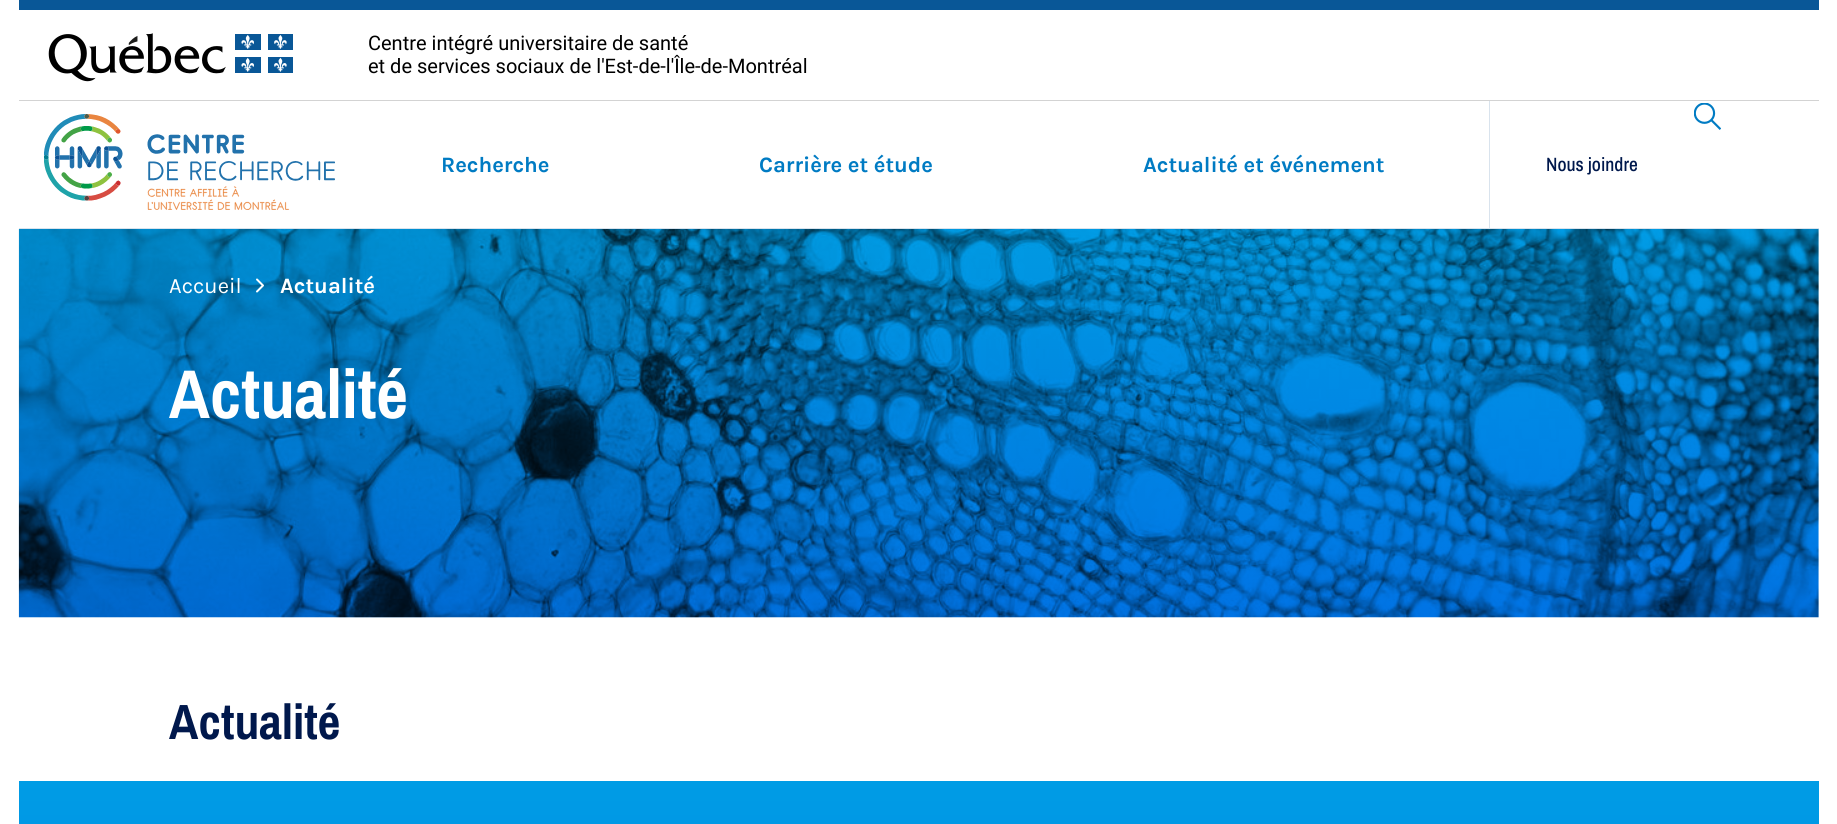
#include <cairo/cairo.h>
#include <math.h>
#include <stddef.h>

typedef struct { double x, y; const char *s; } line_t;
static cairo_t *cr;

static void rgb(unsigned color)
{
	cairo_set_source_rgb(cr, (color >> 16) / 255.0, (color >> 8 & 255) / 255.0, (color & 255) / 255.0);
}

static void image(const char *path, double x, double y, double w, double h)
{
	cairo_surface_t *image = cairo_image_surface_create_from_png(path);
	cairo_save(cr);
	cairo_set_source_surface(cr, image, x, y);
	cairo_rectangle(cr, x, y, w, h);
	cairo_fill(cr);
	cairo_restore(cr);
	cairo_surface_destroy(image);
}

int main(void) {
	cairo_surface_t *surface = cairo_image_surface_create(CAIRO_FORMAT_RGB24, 1837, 824);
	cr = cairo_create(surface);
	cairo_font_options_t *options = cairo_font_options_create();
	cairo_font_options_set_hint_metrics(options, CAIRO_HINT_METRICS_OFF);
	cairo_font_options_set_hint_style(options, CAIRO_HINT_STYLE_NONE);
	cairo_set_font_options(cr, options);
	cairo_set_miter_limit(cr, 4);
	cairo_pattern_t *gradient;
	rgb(0xffffff);
	cairo_paint(cr);
	rgb(0x095797);
	cairo_rectangle(cr, 19, 0, 1800, 10);
	cairo_fill(cr);
	rgb(0xd3d3d3);
	cairo_rectangle(cr, 19, 100, 1800, 1);
	cairo_fill(cr);
	image("img/1.png", 48, 33, 245, 49);
	rgb(0xd9e3ed);
	cairo_rectangle(cr, 19, 228, 1800, 1);
	cairo_fill(cr);
	image("img/2.png", 44, 114, 291, 96);
	cairo_rectangle(cr, 1489, 101, 1, 127);
	cairo_fill(cr);
	image("img/3.png", 1694, 103, 27, 27);
	image("img/4.png", 18, 229, 1801, 389);
	cairo_new_path(cr);
	cairo_move_to(cr, 257, 279.5);
	cairo_line_to(cr, 263, 285.5);
	cairo_line_to(cr, 257, 291.5);
	rgb(0xffffff);
	cairo_set_line_cap(cr, CAIRO_LINE_CAP_ROUND);
	cairo_set_line_join(cr, CAIRO_LINE_JOIN_ROUND);
	cairo_stroke(cr);
	gradient = cairo_pattern_create_linear(919, 781, 919, 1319);
	cairo_pattern_add_color_stop_rgba(gradient, 0, 0, 0.612, 0.898, 1);
	cairo_pattern_add_color_stop_rgba(gradient, 1, 0, 0.451, 0.898, 1);
	cairo_set_source(cr, gradient);
	cairo_pattern_destroy(gradient);
	cairo_rectangle(cr, 19, 781, 1800, 43);
	cairo_fill(cr);
	cairo_select_font_face(cr, "Roboto", CAIRO_FONT_SLANT_NORMAL, CAIRO_FONT_WEIGHT_NORMAL);
	cairo_set_font_size(cr, 20);
	rgb(0x000000);
	cairo_move_to(cr, 368, 50);
	cairo_show_text(cr, "Centre intégré universitaire de santé");
	cairo_move_to(cr, 368, 73);
	cairo_show_text(cr, "et de services sociaux de l'Est-de-l'Île-de-Montréal");
	cairo_select_font_face(cr, "Karla", CAIRO_FONT_SLANT_NORMAL, CAIRO_FONT_WEIGHT_BOLD);
	cairo_set_font_size(cr, 22);
	rgb(0x007bc3);
	{
		static const line_t items[] = {
			{441, 172, "Recherche"},
			{759, 172, "Carrière et étude"},
			{1143, 172, "Actualité et événement"},
		};
		for (size_t i = 0; i < sizeof items / sizeof *items; i++) {
			cairo_move_to(cr, items[i].x, items[i].y);
			cairo_show_text(cr, items[i].s);
		}
	}
	cairo_select_font_face(cr, "Archivo Narrow Medium", CAIRO_FONT_SLANT_NORMAL, CAIRO_FONT_WEIGHT_NORMAL);
	cairo_set_font_size(cr, 19.25);
	rgb(0x00184c);
	cairo_move_to(cr, 1546, 171);
	cairo_show_text(cr, "Nous joindre");
	cairo_select_font_face(cr, "Karla", CAIRO_FONT_SLANT_NORMAL, CAIRO_FONT_WEIGHT_NORMAL);
	cairo_set_font_size(cr, 22);
	rgb(0xffffff);
	cairo_move_to(cr, 169, 293);
	cairo_show_text(cr, "Accueil");
	cairo_select_font_face(cr, "Karla", CAIRO_FONT_SLANT_NORMAL, CAIRO_FONT_WEIGHT_BOLD);
	cairo_move_to(cr, 280, 293);
	cairo_show_text(cr, "Actualité");
	cairo_select_font_face(cr, "Archivo Narrow", CAIRO_FONT_SLANT_NORMAL, CAIRO_FONT_WEIGHT_BOLD);
	cairo_set_font_size(cr, 69);
	cairo_move_to(cr, 169, 418);
	cairo_show_text(cr, "Actualité");
	cairo_set_font_size(cr, 49.5);
	rgb(0x00184c);
	cairo_move_to(cr, 169, 739);
	cairo_show_text(cr, "Actualité");
	cairo_surface_write_to_png(surface, "page.png");
	cairo_font_options_destroy(options);
	cairo_destroy(cr);
	cairo_surface_destroy(surface);
	return 0;
}
